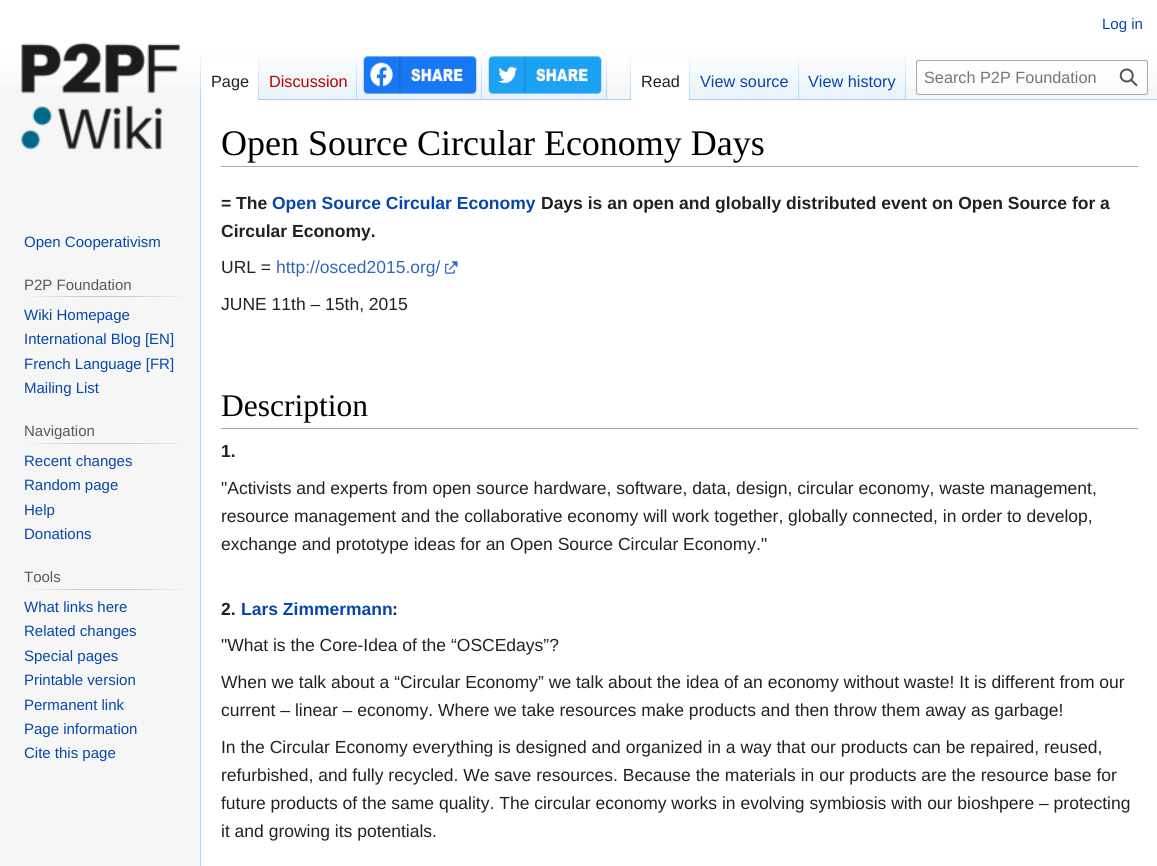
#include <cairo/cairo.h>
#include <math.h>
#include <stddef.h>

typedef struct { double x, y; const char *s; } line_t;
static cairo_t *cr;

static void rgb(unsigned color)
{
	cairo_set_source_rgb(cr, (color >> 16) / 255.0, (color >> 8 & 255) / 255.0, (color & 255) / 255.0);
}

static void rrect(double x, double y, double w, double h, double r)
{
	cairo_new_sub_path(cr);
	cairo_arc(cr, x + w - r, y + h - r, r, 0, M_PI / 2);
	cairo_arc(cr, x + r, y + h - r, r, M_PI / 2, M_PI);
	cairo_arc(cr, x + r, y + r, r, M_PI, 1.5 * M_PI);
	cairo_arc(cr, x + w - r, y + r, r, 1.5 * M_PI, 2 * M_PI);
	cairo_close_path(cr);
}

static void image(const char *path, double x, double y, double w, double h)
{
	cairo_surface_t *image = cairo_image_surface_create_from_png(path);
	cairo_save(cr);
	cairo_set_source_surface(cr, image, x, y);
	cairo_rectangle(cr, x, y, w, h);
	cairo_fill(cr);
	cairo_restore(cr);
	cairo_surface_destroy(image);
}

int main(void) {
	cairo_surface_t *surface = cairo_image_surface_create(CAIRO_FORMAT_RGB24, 1157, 866);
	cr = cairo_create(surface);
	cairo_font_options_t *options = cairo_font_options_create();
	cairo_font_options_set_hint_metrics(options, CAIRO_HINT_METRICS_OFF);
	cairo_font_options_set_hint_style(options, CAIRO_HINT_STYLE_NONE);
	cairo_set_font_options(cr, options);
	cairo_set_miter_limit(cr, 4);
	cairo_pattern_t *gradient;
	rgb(0xf6f6f6);
	cairo_paint(cr);
	gradient = cairo_pattern_create_linear(579, 0, 579, 100);
	cairo_pattern_add_color_stop_rgba(gradient, 0.5, 1, 1, 1, 1);
	cairo_pattern_add_color_stop_rgba(gradient, 1, 0.965, 0.965, 0.965, 1);
	cairo_set_source(cr, gradient);
	cairo_pattern_destroy(gradient);
	cairo_rectangle(cr, 0, 0, 1157, 86);
	cairo_fill(cr);
	rgb(0xa7d7f9);
	cairo_rectangle(cr, 200, 99, 1, 767);
	cairo_fill(cr);
	gradient = cairo_pattern_create_linear(201, 50, 201, 100);
	cairo_pattern_add_color_stop_rgba(gradient, 0, 0.655, 0.843, 0.976, 0);
	cairo_pattern_add_color_stop_rgba(gradient, 1, 0.655, 0.843, 0.976, 1);
	cairo_set_source(cr, gradient);
	cairo_pattern_destroy(gradient);
	cairo_rectangle(cr, 200, 50, 1, 50);
	cairo_fill(cr);
	rgb(0xffffff);
	cairo_rectangle(cr, 201, 64, 57, 36);
	cairo_fill(cr);
	gradient = cairo_pattern_create_linear(258, 50, 258, 100);
	cairo_pattern_add_color_stop_rgba(gradient, 0, 1, 1, 1, 1);
	cairo_pattern_add_color_stop_rgba(gradient, 1, 0.655, 0.843, 0.976, 1);
	cairo_set_source(cr, gradient);
	cairo_pattern_destroy(gradient);
	cairo_rectangle(cr, 258, 50, 1, 50);
	cairo_fill(cr);
	gradient = cairo_pattern_create_linear(308, 100, 308, 50);
	cairo_pattern_add_color_stop_rgba(gradient, 0, 0.467, 0.757, 0.965, 1);
	cairo_pattern_add_color_stop_rgba(gradient, 0.03, 0.91, 0.949, 0.973, 1);
	cairo_pattern_add_color_stop_rgba(gradient, 1, 1, 1, 1, 1);
	cairo_set_source(cr, gradient);
	cairo_pattern_destroy(gradient);
	cairo_rectangle(cr, 259, 57, 99, 43);
	cairo_fill(cr);
	gradient = cairo_pattern_create_linear(357, 50, 357, 100);
	cairo_pattern_add_color_stop_rgba(gradient, 0, 0.655, 0.843, 0.976, 0);
	cairo_pattern_add_color_stop_rgba(gradient, 1, 0.655, 0.843, 0.976, 1);
	cairo_set_source(cr, gradient);
	cairo_pattern_destroy(gradient);
	cairo_rectangle(cr, 356, 50, 1, 50);
	cairo_fill(cr);
	gradient = cairo_pattern_create_linear(420, 100, 420, 50);
	cairo_pattern_add_color_stop_rgba(gradient, 0, 0.467, 0.757, 0.965, 1);
	cairo_pattern_add_color_stop_rgba(gradient, 0.03, 0.91, 0.949, 0.973, 1);
	cairo_pattern_add_color_stop_rgba(gradient, 1, 1, 1, 1, 1);
	cairo_set_source(cr, gradient);
	cairo_pattern_destroy(gradient);
	cairo_rectangle(cr, 358, 57, 125, 43);
	cairo_fill(cr);
	gradient = cairo_pattern_create_linear(482, 50, 482, 100);
	cairo_pattern_add_color_stop_rgba(gradient, 0, 0.655, 0.843, 0.976, 0);
	cairo_pattern_add_color_stop_rgba(gradient, 1, 0.655, 0.843, 0.976, 1);
	cairo_set_source(cr, gradient);
	cairo_pattern_destroy(gradient);
	cairo_rectangle(cr, 481, 50, 1, 50);
	cairo_fill(cr);
	image("img/1.png", 363, 56, 114, 38);
	gradient = cairo_pattern_create_linear(545, 100, 545, 50);
	cairo_pattern_add_color_stop_rgba(gradient, 0, 0.467, 0.757, 0.965, 1);
	cairo_pattern_add_color_stop_rgba(gradient, 0.03, 0.91, 0.949, 0.973, 1);
	cairo_pattern_add_color_stop_rgba(gradient, 1, 1, 1, 1, 1);
	cairo_set_source(cr, gradient);
	cairo_pattern_destroy(gradient);
	cairo_rectangle(cr, 483, 57, 125, 43);
	cairo_fill(cr);
	gradient = cairo_pattern_create_linear(607, 50, 607, 100);
	cairo_pattern_add_color_stop_rgba(gradient, 0, 0.655, 0.843, 0.976, 0);
	cairo_pattern_add_color_stop_rgba(gradient, 1, 0.655, 0.843, 0.976, 1);
	cairo_set_source(cr, gradient);
	cairo_pattern_destroy(gradient);
	cairo_rectangle(cr, 606, 50, 1, 50);
	cairo_fill(cr);
	image("img/2.png", 488, 56, 114, 38);
	rgb(0xa7d7f9);
	cairo_rectangle(cr, 608, 99, 549, 1);
	cairo_fill(cr);
	gradient = cairo_pattern_create_linear(631, 50, 631, 100);
	cairo_pattern_add_color_stop_rgba(gradient, 0, 0.655, 0.843, 0.976, 0);
	cairo_pattern_add_color_stop_rgba(gradient, 1, 0.655, 0.843, 0.976, 1);
	cairo_set_source(cr, gradient);
	cairo_pattern_destroy(gradient);
	cairo_rectangle(cr, 630, 50, 1, 50);
	cairo_fill(cr);
	rgb(0xffffff);
	cairo_rectangle(cr, 631, 64, 58, 36);
	cairo_fill(cr);
	gradient = cairo_pattern_create_linear(689, 50, 689, 100);
	cairo_pattern_add_color_stop_rgba(gradient, 0, 1, 1, 1, 1);
	cairo_pattern_add_color_stop_rgba(gradient, 1, 0.655, 0.843, 0.976, 1);
	cairo_set_source(cr, gradient);
	cairo_pattern_destroy(gradient);
	cairo_rectangle(cr, 689, 50, 1, 50);
	cairo_fill(cr);
	gradient = cairo_pattern_create_linear(744, 100, 744, 50);
	cairo_pattern_add_color_stop_rgba(gradient, 0, 0.467, 0.757, 0.965, 1);
	cairo_pattern_add_color_stop_rgba(gradient, 0.03, 0.91, 0.949, 0.973, 1);
	cairo_pattern_add_color_stop_rgba(gradient, 1, 1, 1, 1, 1);
	cairo_set_source(cr, gradient);
	cairo_pattern_destroy(gradient);
	cairo_rectangle(cr, 690, 57, 109, 43);
	cairo_fill(cr);
	gradient = cairo_pattern_create_linear(798, 50, 798, 100);
	cairo_pattern_add_color_stop_rgba(gradient, 0, 0.655, 0.843, 0.976, 0);
	cairo_pattern_add_color_stop_rgba(gradient, 1, 0.655, 0.843, 0.976, 1);
	cairo_set_source(cr, gradient);
	cairo_pattern_destroy(gradient);
	cairo_rectangle(cr, 798, 50, 1, 50);
	cairo_fill(cr);
	gradient = cairo_pattern_create_linear(853, 100, 853, 50);
	cairo_pattern_add_color_stop_rgba(gradient, 0, 0.467, 0.757, 0.965, 1);
	cairo_pattern_add_color_stop_rgba(gradient, 0.03, 0.91, 0.949, 0.973, 1);
	cairo_pattern_add_color_stop_rgba(gradient, 1, 1, 1, 1, 1);
	cairo_set_source(cr, gradient);
	cairo_pattern_destroy(gradient);
	cairo_rectangle(cr, 799, 57, 107, 43);
	cairo_fill(cr);
	gradient = cairo_pattern_create_linear(906, 50, 906, 100);
	cairo_pattern_add_color_stop_rgba(gradient, 0, 0.655, 0.843, 0.976, 0);
	cairo_pattern_add_color_stop_rgba(gradient, 1, 0.655, 0.843, 0.976, 1);
	cairo_set_source(cr, gradient);
	cairo_pattern_destroy(gradient);
	cairo_rectangle(cr, 905, 50, 1, 50);
	cairo_fill(cr);
	cairo_set_source_rgba(cr, 1, 1, 1, 0.5);
	rrect(916.5, 60.5, 231, 34, 2);
	cairo_fill_preserve(cr);
	rgb(0xa2a9b1);
	cairo_set_line_width(cr, 1);
	cairo_stroke(cr);
	image("img/3.png", 1119, 68, 19, 19);
	image("img/4.png", 21, 42, 159, 108);
	gradient = cairo_pattern_create_linear(24, 297, 188, 297);
	cairo_pattern_add_color_stop_rgba(gradient, 0, 0.965, 0.965, 0.965, 1);
	cairo_pattern_add_color_stop_rgba(gradient, 0.33, 0.784, 0.8, 0.82, 1);
	cairo_pattern_add_color_stop_rgba(gradient, 0.66, 0.784, 0.8, 0.82, 1);
	cairo_pattern_add_color_stop_rgba(gradient, 1, 0.965, 0.965, 0.965, 1);
	cairo_set_source(cr, gradient);
	cairo_pattern_destroy(gradient);
	cairo_rectangle(cr, 24, 296, 164, 1);
	cairo_fill(cr);
	gradient = cairo_pattern_create_linear(24, 443, 188, 443);
	cairo_pattern_add_color_stop_rgba(gradient, 0, 0.965, 0.965, 0.965, 1);
	cairo_pattern_add_color_stop_rgba(gradient, 0.33, 0.784, 0.8, 0.82, 1);
	cairo_pattern_add_color_stop_rgba(gradient, 0.66, 0.784, 0.8, 0.82, 1);
	cairo_pattern_add_color_stop_rgba(gradient, 1, 0.965, 0.965, 0.965, 1);
	cairo_set_source(cr, gradient);
	cairo_pattern_destroy(gradient);
	cairo_rectangle(cr, 24, 443, 164, 1);
	cairo_fill(cr);
	gradient = cairo_pattern_create_linear(24, 589, 188, 589);
	cairo_pattern_add_color_stop_rgba(gradient, 0, 0.965, 0.965, 0.965, 1);
	cairo_pattern_add_color_stop_rgba(gradient, 0.33, 0.784, 0.8, 0.82, 1);
	cairo_pattern_add_color_stop_rgba(gradient, 0.66, 0.784, 0.8, 0.82, 1);
	cairo_pattern_add_color_stop_rgba(gradient, 1, 0.965, 0.965, 0.965, 1);
	cairo_set_source(cr, gradient);
	cairo_pattern_destroy(gradient);
	cairo_rectangle(cr, 24, 589, 164, 1);
	cairo_fill(cr);
	rgb(0xffffff);
	cairo_rectangle(cr, 201, 100, 956, 766);
	cairo_fill(cr);
	rgb(0xa2a9b1);
	cairo_rectangle(cr, 221, 166, 917, 1);
	cairo_fill(cr);
	image("img/5.png", 445, 261, 13, 13);
	cairo_rectangle(cr, 221, 428, 917, 1);
	cairo_fill(cr);
	cairo_select_font_face(cr, "Liberation Sans", CAIRO_FONT_SLANT_NORMAL, CAIRO_FONT_WEIGHT_NORMAL);
	cairo_set_font_size(cr, 15);
	rgb(0x0645ad);
	cairo_move_to(cr, 1102, 29);
	cairo_show_text(cr, "Log in");
	cairo_set_font_size(cr, 16.25);
	rgb(0x202122);
	cairo_move_to(cr, 211, 87);
	cairo_show_text(cr, "Page");
	rgb(0xba0000);
	cairo_move_to(cr, 269, 87);
	cairo_show_text(cr, "Discussion");
	rgb(0x202122);
	cairo_move_to(cr, 641, 87);
	cairo_show_text(cr, "Read");
	rgb(0x0645ad);
	cairo_move_to(cr, 700, 87);
	cairo_show_text(cr, "View source");
	cairo_move_to(cr, 808, 87);
	cairo_show_text(cr, "View history");
	rgb(0x72777d);
	cairo_move_to(cr, 924, 83);
	cairo_show_text(cr, "Search P2P Foundation");
	cairo_set_font_size(cr, 15);
	rgb(0x0645ad);
	cairo_move_to(cr, 24, 247);
	cairo_show_text(cr, "Open Cooperativism");
	rgb(0x54595d);
	cairo_move_to(cr, 24, 290);
	cairo_show_text(cr, "P2P Foundation");
	rgb(0x0645ad);
	{
		static const line_t items[] = {
			{24, 320, "Wiki Homepage"},
			{24, 344, "International Blog [EN]"},
			{24, 369, "French Language [FR]"},
			{24, 393, "Mailing List"},
		};
		for (size_t i = 0; i < sizeof items / sizeof *items; i++) {
			cairo_move_to(cr, items[i].x, items[i].y);
			cairo_show_text(cr, items[i].s);
		}
	}
	rgb(0x54595d);
	cairo_move_to(cr, 24, 436);
	cairo_show_text(cr, "Navigation");
	rgb(0x0645ad);
	{
		static const line_t items[] = {
			{24, 466, "Recent changes"},
			{24, 490, "Random page"},
			{24, 515, "Help"},
			{24, 539, "Donations"},
		};
		for (size_t i = 0; i < sizeof items / sizeof *items; i++) {
			cairo_move_to(cr, items[i].x, items[i].y);
			cairo_show_text(cr, items[i].s);
		}
	}
	rgb(0x54595d);
	cairo_move_to(cr, 24, 582);
	cairo_show_text(cr, "Tools");
	rgb(0x0645ad);
	{
		static const line_t items[] = {
			{24, 612, "What links here"},
			{24, 636, "Related changes"},
			{24, 661, "Special pages"},
			{24, 685, "Printable version"},
			{24, 710, "Permanent link"},
			{24, 734, "Page information"},
			{24, 758, "Cite this page"},
		};
		for (size_t i = 0; i < sizeof items / sizeof *items; i++) {
			cairo_move_to(cr, items[i].x, items[i].y);
			cairo_show_text(cr, items[i].s);
		}
	}
	cairo_select_font_face(cr, "Liberation Serif", CAIRO_FONT_SLANT_NORMAL, CAIRO_FONT_WEIGHT_NORMAL);
	cairo_set_font_size(cr, 36);
	rgb(0x000000);
	cairo_move_to(cr, 221, 155);
	cairo_show_text(cr, "Open Source Circular Economy Days");
	cairo_select_font_face(cr, "Liberation Sans", CAIRO_FONT_SLANT_NORMAL, CAIRO_FONT_WEIGHT_BOLD);
	cairo_set_font_size(cr, 17.5);
	rgb(0x202122);
	cairo_move_to(cr, 221, 209);
	cairo_show_text(cr, "= The");
	rgb(0x0645ad);
	cairo_move_to(cr, 272, 209);
	cairo_show_text(cr, "Open Source Circular Economy");
	rgb(0x202122);
	cairo_move_to(cr, 541, 209);
	cairo_show_text(cr, "Days is an open and globally distributed event on Open Source for a");
	cairo_move_to(cr, 221, 237);
	cairo_show_text(cr, "Circular Economy.");
	cairo_select_font_face(cr, "Liberation Sans", CAIRO_FONT_SLANT_NORMAL, CAIRO_FONT_WEIGHT_NORMAL);
	cairo_move_to(cr, 221, 273);
	cairo_show_text(cr, "URL =");
	rgb(0x3366bb);
	cairo_move_to(cr, 276, 273);
	cairo_show_text(cr, "http://osced2015.org/");
	rgb(0x202122);
	cairo_move_to(cr, 221, 310);
	cairo_show_text(cr, "JUNE 11th – 15th, 2015");
	cairo_select_font_face(cr, "Liberation Serif", CAIRO_FONT_SLANT_NORMAL, CAIRO_FONT_WEIGHT_NORMAL);
	cairo_set_font_size(cr, 31.5);
	rgb(0x000000);
	cairo_move_to(cr, 221, 416);
	cairo_show_text(cr, "Description");
	cairo_select_font_face(cr, "Liberation Sans", CAIRO_FONT_SLANT_NORMAL, CAIRO_FONT_WEIGHT_BOLD);
	cairo_set_font_size(cr, 17.5);
	rgb(0x202122);
	cairo_move_to(cr, 221, 457);
	cairo_show_text(cr, "1.");
	cairo_select_font_face(cr, "Liberation Sans", CAIRO_FONT_SLANT_NORMAL, CAIRO_FONT_WEIGHT_NORMAL);
	{
		static const line_t items[] = {
			{221, 494, "\"Activists and experts from open source hardware, software, data, design, circular economy, waste management,"},
			{221, 522, "resource management and the collaborative economy will work together, globally connected, in order to develop,"},
			{221, 550, "exchange and prototype ideas for an Open Source Circular Economy.\""},
		};
		for (size_t i = 0; i < sizeof items / sizeof *items; i++) {
			cairo_move_to(cr, items[i].x, items[i].y);
			cairo_show_text(cr, items[i].s);
		}
	}
	cairo_select_font_face(cr, "Liberation Sans", CAIRO_FONT_SLANT_NORMAL, CAIRO_FONT_WEIGHT_BOLD);
	cairo_move_to(cr, 221, 615);
	cairo_show_text(cr, "2.");
	rgb(0x0645ad);
	cairo_move_to(cr, 241, 615);
	cairo_show_text(cr, "Lars Zimmermann");
	rgb(0x202122);
	cairo_move_to(cr, 392, 615);
	cairo_show_text(cr, ":");
	cairo_select_font_face(cr, "Liberation Sans", CAIRO_FONT_SLANT_NORMAL, CAIRO_FONT_WEIGHT_NORMAL);
	{
		static const line_t items[] = {
			{221, 651, "\"What is the Core-Idea of the “OSCEdays”?"},
			{221, 688, "When we talk about a “Circular Economy” we talk about the idea of an economy without waste! It is different from our"},
			{221, 716, "current – linear – economy. Where we take resources make products and then throw them away as garbage!"},
			{221, 753, "In the Circular Economy everything is designed and organized in a way that our products can be repaired, reused,"},
			{221, 781, "refurbished, and fully recycled. We save resources. Because the materials in our products are the resource base for"},
			{221, 809, "future products of the same quality. The circular economy works in evolving symbiosis with our bioshpere – protecting"},
			{221, 837, "it and growing its potentials."},
		};
		for (size_t i = 0; i < sizeof items / sizeof *items; i++) {
			cairo_move_to(cr, items[i].x, items[i].y);
			cairo_show_text(cr, items[i].s);
		}
	}
	cairo_surface_write_to_png(surface, "page.png");
	cairo_font_options_destroy(options);
	cairo_destroy(cr);
	cairo_surface_destroy(surface);
	return 0;
}
